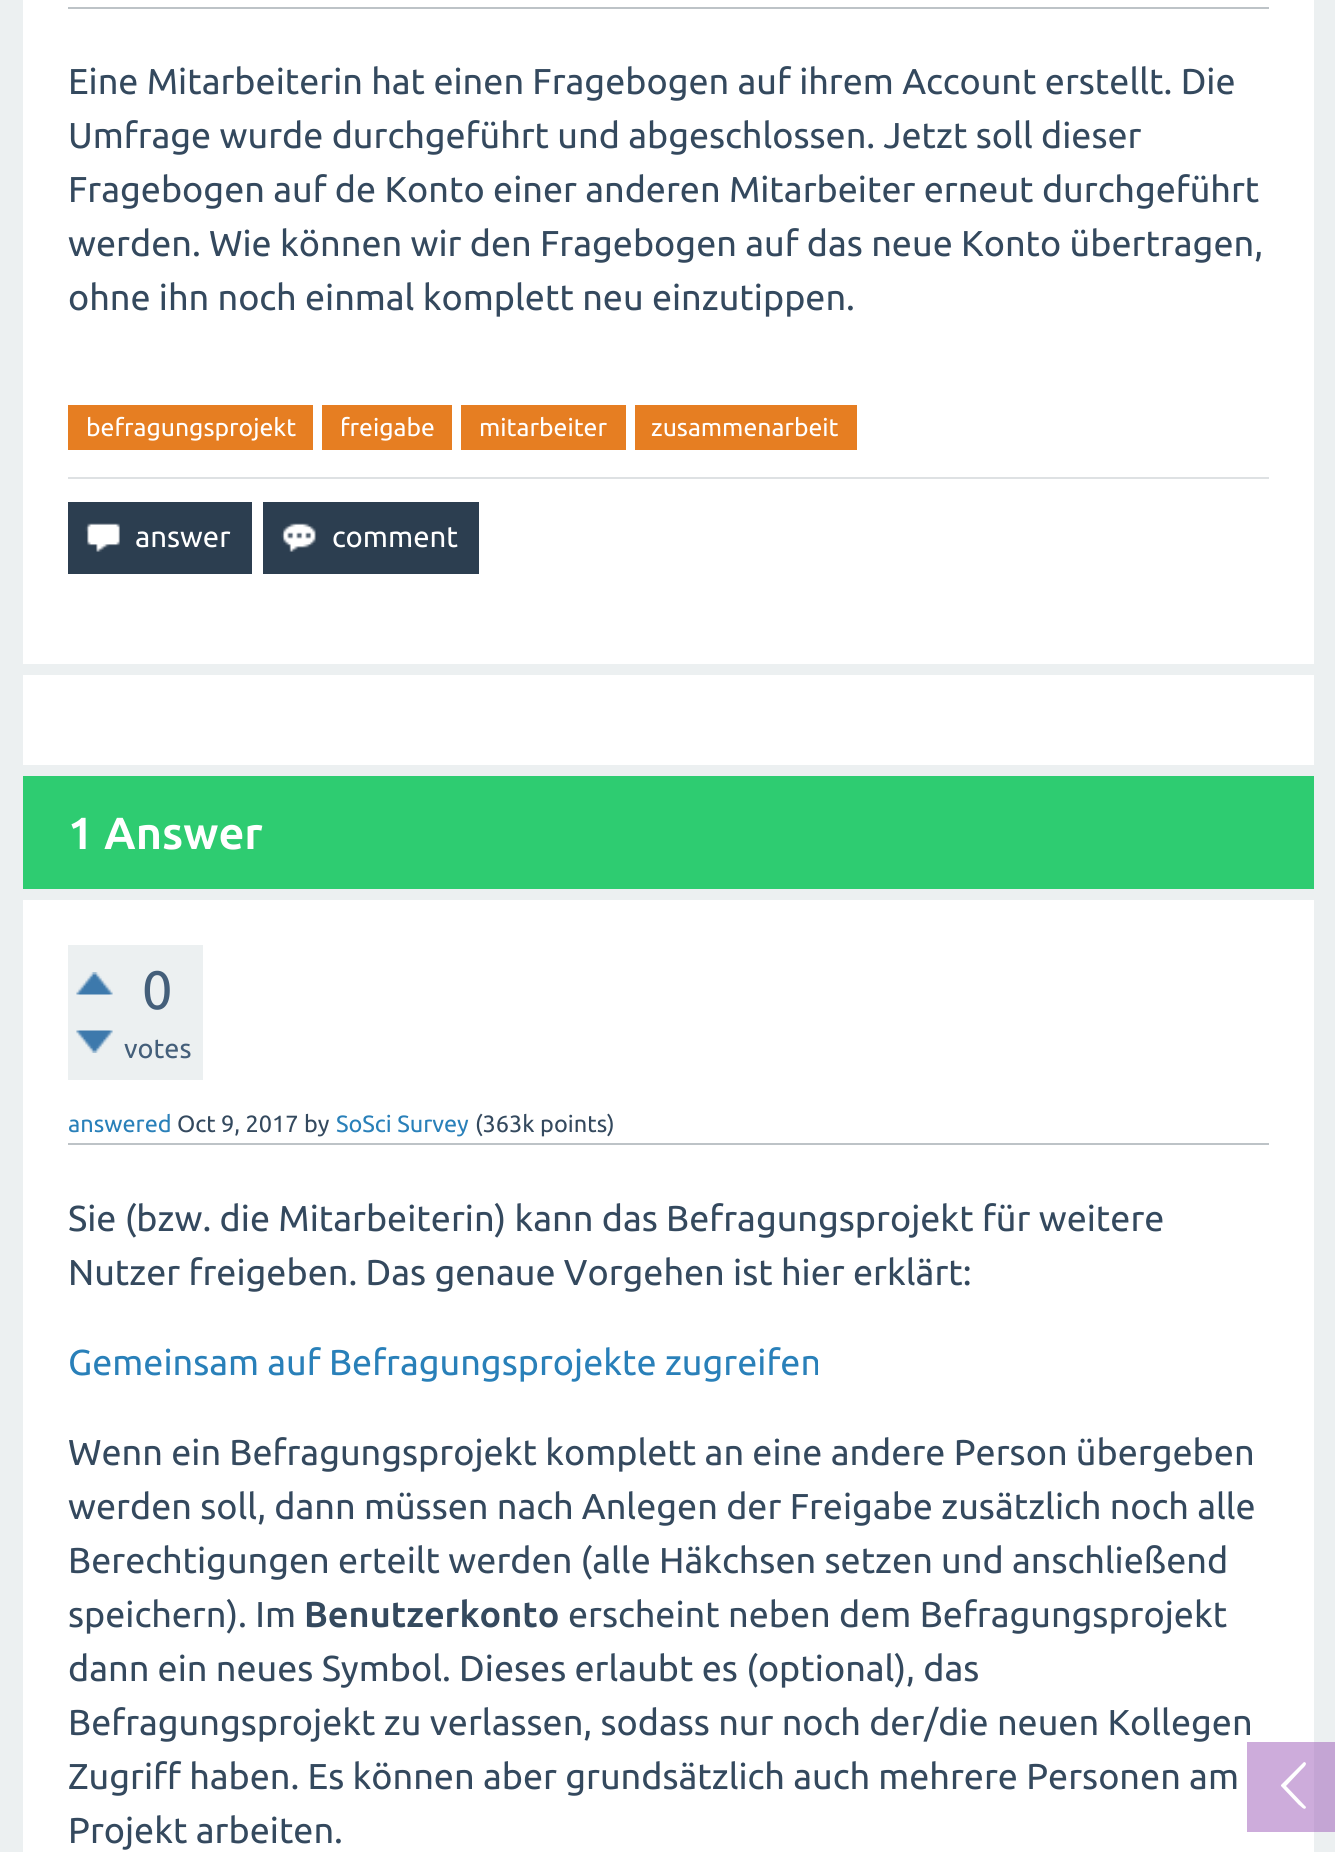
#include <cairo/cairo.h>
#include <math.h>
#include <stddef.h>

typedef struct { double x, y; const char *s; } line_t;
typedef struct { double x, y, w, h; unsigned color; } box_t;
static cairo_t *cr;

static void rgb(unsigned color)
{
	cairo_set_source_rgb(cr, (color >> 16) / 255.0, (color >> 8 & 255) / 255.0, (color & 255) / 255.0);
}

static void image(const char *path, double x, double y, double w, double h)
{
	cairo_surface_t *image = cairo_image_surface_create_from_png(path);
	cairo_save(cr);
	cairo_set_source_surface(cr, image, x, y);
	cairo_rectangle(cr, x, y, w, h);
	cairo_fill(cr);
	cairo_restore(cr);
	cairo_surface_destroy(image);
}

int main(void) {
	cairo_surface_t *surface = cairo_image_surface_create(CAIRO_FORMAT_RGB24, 1335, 1852);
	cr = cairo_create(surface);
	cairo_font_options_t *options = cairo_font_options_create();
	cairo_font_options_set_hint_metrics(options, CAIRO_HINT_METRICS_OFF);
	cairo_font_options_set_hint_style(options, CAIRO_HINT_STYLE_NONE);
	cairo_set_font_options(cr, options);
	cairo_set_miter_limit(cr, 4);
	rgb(0xecf0f1);
	cairo_paint(cr);
	{
		static const box_t items[] = {
			{1314, 1742, 21, 90, 0xc4a5d4},
			{23, 0, 1291, 664, 0xffffff},
			{68, 7, 1201, 2, 0xbdc3c7},
			{68, 405, 245, 45, 0xe67e22},
			{322, 405, 130, 45, 0xe67e22},
			{461, 405, 165, 45, 0xe67e22},
			{635, 405, 222, 45, 0xe67e22},
			{68, 477, 1201, 2, 0xdee1e3},
			{68, 502, 184, 72, 0x2c3e50},
		};
		for (size_t i = 0; i < sizeof items / sizeof *items; i++) {
			rgb(items[i].color);
			cairo_rectangle(cr, items[i].x, items[i].y, items[i].w, items[i].h);
			cairo_fill(cr);
		}
	}
	image("img/1.png", 85, 523, 35, 29);
	cairo_rectangle(cr, 263, 502, 216, 72);
	cairo_fill(cr);
	image("img/2.png", 281, 523, 35, 29);
	{
		static const box_t items[] = {
			{23, 675, 1291, 90, 0xffffff},
			{23, 776, 1291, 113, 0x2ecc71},
			{23, 900, 1291, 952, 0xffffff},
			{1247, 1742, 67, 90, 0xcdacdb},
			{68, 945, 135, 135, 0xecf0f1},
		};
		for (size_t i = 0; i < sizeof items / sizeof *items; i++) {
			rgb(items[i].color);
			cairo_rectangle(cr, items[i].x, items[i].y, items[i].w, items[i].h);
			cairo_fill(cr);
		}
	}
	image("img/3.png", 76, 972, 37, 23);
	image("img/4.png", 76, 1030, 37, 23);
	rgb(0xbdc3c7);
	cairo_rectangle(cr, 68, 1143, 1201, 2);
	cairo_fill(cr);
	rgb(0xffffff);
	cairo_new_path(cr);
	cairo_move_to(cr, 1305, 1806);
	cairo_line_to(cr, 1306, 1807);
	cairo_curve_to(cr, 1305, 1812, 1300, 1805, 1299, 1805);
	cairo_line_to(cr, 1281, 1786);
	cairo_line_to(cr, 1281, 1785);
	cairo_line_to(cr, 1303, 1763);
	cairo_line_to(cr, 1304, 1762);
	cairo_curve_to(cr, 1309, 1763, 1303, 1768, 1302, 1769);
	cairo_line_to(cr, 1286, 1786);
	cairo_close_path(cr);
	cairo_fill(cr);
	cairo_select_font_face(cr, "Ubuntu", CAIRO_FONT_SLANT_NORMAL, CAIRO_FONT_WEIGHT_NORMAL);
	cairo_set_font_size(cr, 36);
	rgb(0x34495e);
	{
		static const line_t items[] = {
			{68, 94, "Eine Mitarbeiterin hat einen Fragebogen auf ihrem Account erstellt. Die"},
			{68, 148, "Umfrage wurde durchgeführt und abgeschlossen. Jetzt soll dieser"},
			{68, 202, "Fragebogen auf de Konto einer anderen Mitarbeiter erneut durchgeführt"},
			{68, 256, "werden. Wie können wir den Fragebogen auf das neue Konto übertragen,"},
			{68, 310, "ohne ihn noch einmal komplett neu einzutippen."},
		};
		for (size_t i = 0; i < sizeof items / sizeof *items; i++) {
			cairo_move_to(cr, items[i].x, items[i].y);
			cairo_show_text(cr, items[i].s);
		}
	}
	cairo_set_font_size(cr, 24.75);
	rgb(0xffffff);
	{
		static const line_t items[] = {
			{86, 436, "befragungsprojekt"},
			{340, 436, "freigabe"},
			{479, 436, "mitarbeiter"},
			{651, 436, "zusammenarbeit"},
		};
		for (size_t i = 0; i < sizeof items / sizeof *items; i++) {
			cairo_move_to(cr, items[i].x, items[i].y);
			cairo_show_text(cr, items[i].s);
		}
	}
	cairo_set_font_size(cr, 29.25);
	cairo_move_to(cr, 135, 547);
	cairo_show_text(cr, "answer");
	cairo_move_to(cr, 332, 547);
	cairo_show_text(cr, "comment");
	cairo_select_font_face(cr, "Ubuntu", CAIRO_FONT_SLANT_NORMAL, CAIRO_FONT_WEIGHT_BOLD);
	cairo_set_font_size(cr, 45);
	cairo_move_to(cr, 68, 849);
	cairo_show_text(cr, "1 Answer");
	cairo_select_font_face(cr, "Ubuntu", CAIRO_FONT_SLANT_NORMAL, CAIRO_FONT_WEIGHT_NORMAL);
	cairo_set_font_size(cr, 54);
	rgb(0x445f7a);
	cairo_move_to(cr, 142, 1009);
	cairo_show_text(cr, "0");
	cairo_set_font_size(cr, 27);
	cairo_move_to(cr, 124, 1058);
	cairo_show_text(cr, "votes");
	cairo_set_font_size(cr, 23.5);
	rgb(0x2980b9);
	cairo_move_to(cr, 68, 1132);
	cairo_show_text(cr, "answered");
	rgb(0x34495e);
	cairo_move_to(cr, 177, 1132);
	cairo_show_text(cr, "Oct 9, 2017 by");
	rgb(0x2980b9);
	cairo_move_to(cr, 336, 1132);
	cairo_show_text(cr, "SoSci Survey");
	rgb(0x34495e);
	cairo_move_to(cr, 475, 1132);
	cairo_show_text(cr, "(363k points)");
	cairo_set_font_size(cr, 36);
	cairo_move_to(cr, 68, 1231);
	cairo_show_text(cr, "Sie (bzw. die Mitarbeiterin) kann das Befragungsprojekt für weitere");
	cairo_move_to(cr, 68, 1285);
	cairo_show_text(cr, "Nutzer freigeben. Das genaue Vorgehen ist hier erklärt:");
	rgb(0x2980b9);
	cairo_move_to(cr, 68, 1375);
	cairo_show_text(cr, "Gemeinsam auf Befragungsprojekte zugreifen");
	rgb(0x34495e);
	{
		static const line_t items[] = {
			{68, 1465, "Wenn ein Befragungsprojekt komplett an eine andere Person übergeben"},
			{68, 1519, "werden soll, dann müssen nach Anlegen der Freigabe zusätzlich noch alle"},
			{68, 1573, "Berechtigungen erteilt werden (alle Häkchsen setzen und anschließend"},
			{68, 1627, "speichern). Im"},
		};
		for (size_t i = 0; i < sizeof items / sizeof *items; i++) {
			cairo_move_to(cr, items[i].x, items[i].y);
			cairo_show_text(cr, items[i].s);
		}
	}
	cairo_select_font_face(cr, "Ubuntu", CAIRO_FONT_SLANT_NORMAL, CAIRO_FONT_WEIGHT_BOLD);
	cairo_move_to(cr, 304, 1627);
	cairo_show_text(cr, "Benutzerkonto");
	cairo_select_font_face(cr, "Ubuntu", CAIRO_FONT_SLANT_NORMAL, CAIRO_FONT_WEIGHT_NORMAL);
	{
		static const line_t items[] = {
			{568, 1627, "erscheint neben dem Befragungsprojekt"},
			{68, 1681, "dann ein neues Symbol. Dieses erlaubt es (optional), das"},
			{68, 1735, "Befragungsprojekt zu verlassen, sodass nur noch der/die neuen Kollegen"},
			{68, 1789, "Zugriff haben. Es können aber grundsätzlich auch mehrere Personen am"},
			{68, 1843, "Projekt arbeiten."},
		};
		for (size_t i = 0; i < sizeof items / sizeof *items; i++) {
			cairo_move_to(cr, items[i].x, items[i].y);
			cairo_show_text(cr, items[i].s);
		}
	}
	cairo_surface_write_to_png(surface, "page.png");
	cairo_font_options_destroy(options);
	cairo_destroy(cr);
	cairo_surface_destroy(surface);
	return 0;
}
